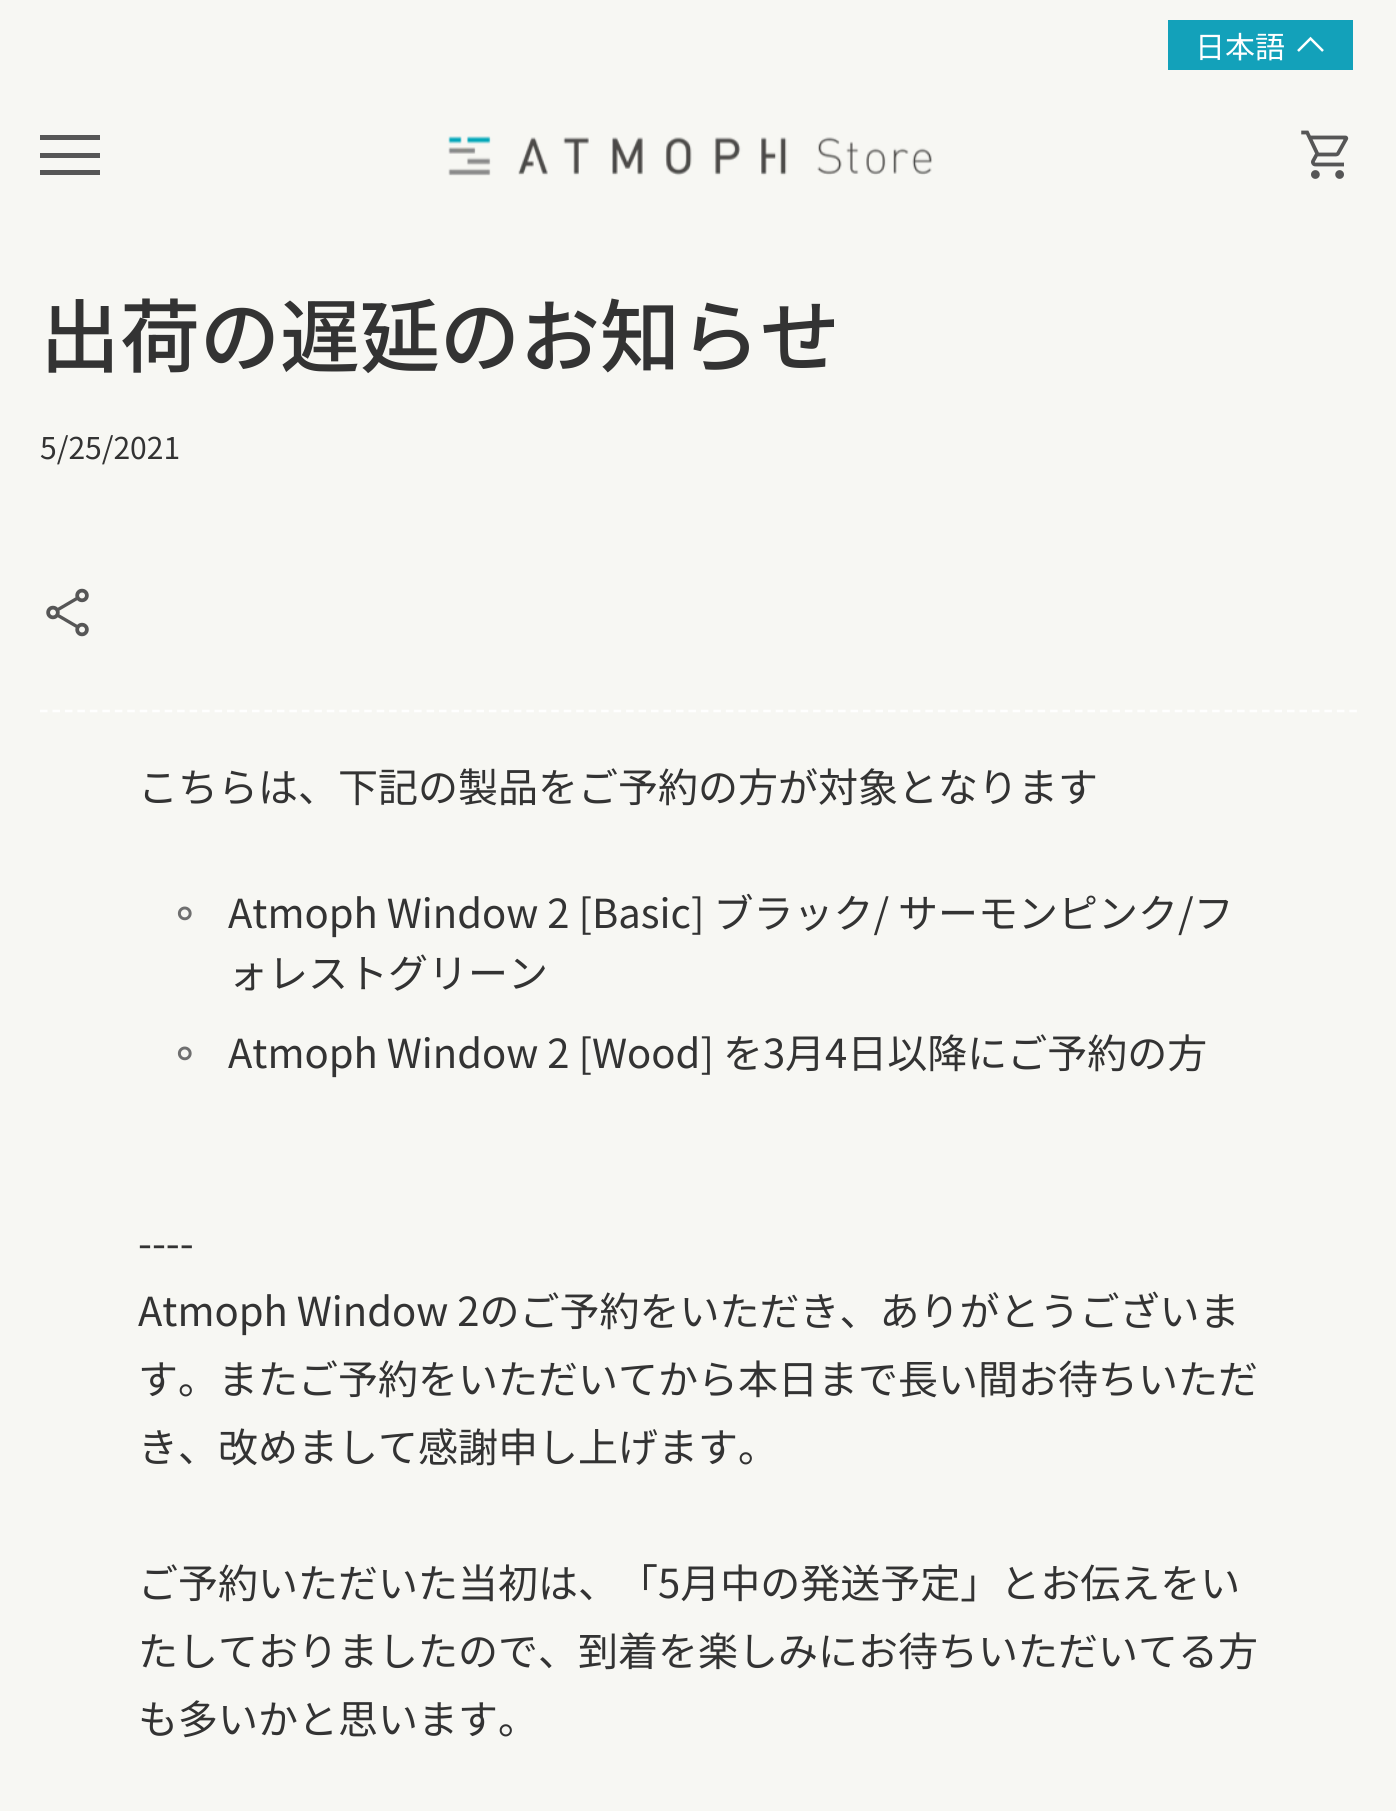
#include <cairo/cairo.h>
#include <math.h>
#include <stddef.h>

typedef struct { double x, y; const char *s; } line_t;
typedef struct { double x, y, w, h; unsigned color; } box_t;
static cairo_t *cr;

static void rgb(unsigned color)
{
	cairo_set_source_rgb(cr, (color >> 16) / 255.0, (color >> 8 & 255) / 255.0, (color & 255) / 255.0);
}

static void image(const char *path, double x, double y, double w, double h)
{
	cairo_surface_t *image = cairo_image_surface_create_from_png(path);
	cairo_save(cr);
	cairo_set_source_surface(cr, image, x, y);
	cairo_rectangle(cr, x, y, w, h);
	cairo_fill(cr);
	cairo_restore(cr);
	cairo_surface_destroy(image);
}

int main(void) {
	cairo_surface_t *surface = cairo_image_surface_create(CAIRO_FORMAT_RGB24, 1396, 1811);
	cr = cairo_create(surface);
	cairo_font_options_t *options = cairo_font_options_create();
	cairo_font_options_set_hint_metrics(options, CAIRO_HINT_METRICS_OFF);
	cairo_font_options_set_hint_style(options, CAIRO_HINT_STYLE_NONE);
	cairo_set_font_options(cr, options);
	cairo_set_miter_limit(cr, 4);
	rgb(0xf7f7f3);
	cairo_paint(cr);
	rgb(0x13a1ba);
	cairo_rectangle(cr, 1168, 20, 185, 50);
	cairo_fill(cr);
	cairo_new_path(cr);
	cairo_move_to(cr, 1323, 51);
	cairo_line_to(cr, 1310.5, 38.5);
	cairo_line_to(cr, 1298, 51);
	rgb(0xffffff);
	cairo_set_line_width(cr, 2.5);
	cairo_stroke(cr);
	{
		static const box_t items[] = {
			{40, 135, 60, 5, 0x565656},
			{40, 153, 60, 5, 0x565656},
			{40, 170, 60, 5, 0x565656},
		};
		for (size_t i = 0; i < sizeof items / sizeof *items; i++) {
			rgb(items[i].color);
			cairo_rectangle(cr, items[i].x, items[i].y, items[i].w, items[i].h);
			cairo_fill(cr);
		}
	}
	image("img/1.png", 448, 136, 485, 40);
	image("img/2.png", 1301, 130, 48, 49);
	image("img/3.png", 46, 588, 43, 49);
	cairo_new_path(cr);
	cairo_move_to(cr, 40, 711);
	cairo_line_to(cr, 1357.5, 711);
	rgb(0xffffff);
	cairo_set_dash(cr, (double[]){7.5, 4.97}, 2, 0);
	cairo_stroke(cr);
	cairo_select_font_face(cr, "Noto Sans JP", CAIRO_FONT_SLANT_NORMAL, CAIRO_FONT_WEIGHT_NORMAL);
	cairo_set_font_size(cr, 30);
	cairo_move_to(cr, 1195, 58);
	cairo_show_text(cr, "日本語");
	cairo_select_font_face(cr, "Noto Sans JP Medium", CAIRO_FONT_SLANT_NORMAL, CAIRO_FONT_WEIGHT_NORMAL);
	cairo_set_font_size(cr, 80);
	rgb(0x333333);
	cairo_move_to(cr, 40, 366);
	cairo_show_text(cr, "出荷の遅延のお知らせ");
	cairo_select_font_face(cr, "Noto Sans JP", CAIRO_FONT_SLANT_NORMAL, CAIRO_FONT_WEIGHT_NORMAL);
	cairo_set_font_size(cr, 30);
	cairo_move_to(cr, 40, 459);
	cairo_show_text(cr, "5/25/2021");
	cairo_set_font_size(cr, 40);
	cairo_move_to(cr, 138, 802);
	cairo_show_text(cr, "こちらは、下記の製品をご予約の方が対象となります");
	cairo_select_font_face(cr, "DejaVu Sans", CAIRO_FONT_SLANT_NORMAL, CAIRO_FONT_WEIGHT_NORMAL);
	rgb(0x6f6f6f);
	cairo_move_to(cr, 168, 928);
	cairo_show_text(cr, "⚬");
	cairo_select_font_face(cr, "Noto Sans JP", CAIRO_FONT_SLANT_NORMAL, CAIRO_FONT_WEIGHT_NORMAL);
	rgb(0x333333);
	cairo_move_to(cr, 228, 928);
	cairo_show_text(cr, "Atmoph Window 2 [Basic] ブラック/ サーモンピンク/フ");
	cairo_move_to(cr, 228, 988);
	cairo_show_text(cr, "ォレストグリーン");
	cairo_select_font_face(cr, "DejaVu Sans", CAIRO_FONT_SLANT_NORMAL, CAIRO_FONT_WEIGHT_NORMAL);
	rgb(0x6f6f6f);
	cairo_move_to(cr, 168, 1068);
	cairo_show_text(cr, "⚬");
	cairo_select_font_face(cr, "Noto Sans JP", CAIRO_FONT_SLANT_NORMAL, CAIRO_FONT_WEIGHT_NORMAL);
	rgb(0x333333);
	{
		static const line_t items[] = {
			{228, 1068, "Atmoph Window 2 [Wood] を3月4日以降にご予約の方"},
			{138, 1258, "----"},
			{138, 1326, "Atmoph Window 2のご予約をいただき、ありがとうございま"},
			{138, 1394, "す。またご予約をいただいてから本日まで長い間お待ちいただ"},
			{138, 1462, "き、改めまして感謝申し上げます。"},
			{138, 1598, "ご予約いただいた当初は、「5月中の発送予定」とお伝えをい"},
			{138, 1666, "たしておりましたので、到着を楽しみにお待ちいただいてる方"},
			{138, 1734, "も多いかと思います。"},
		};
		for (size_t i = 0; i < sizeof items / sizeof *items; i++) {
			cairo_move_to(cr, items[i].x, items[i].y);
			cairo_show_text(cr, items[i].s);
		}
	}
	cairo_surface_write_to_png(surface, "page.png");
	cairo_font_options_destroy(options);
	cairo_destroy(cr);
	cairo_surface_destroy(surface);
	return 0;
}
